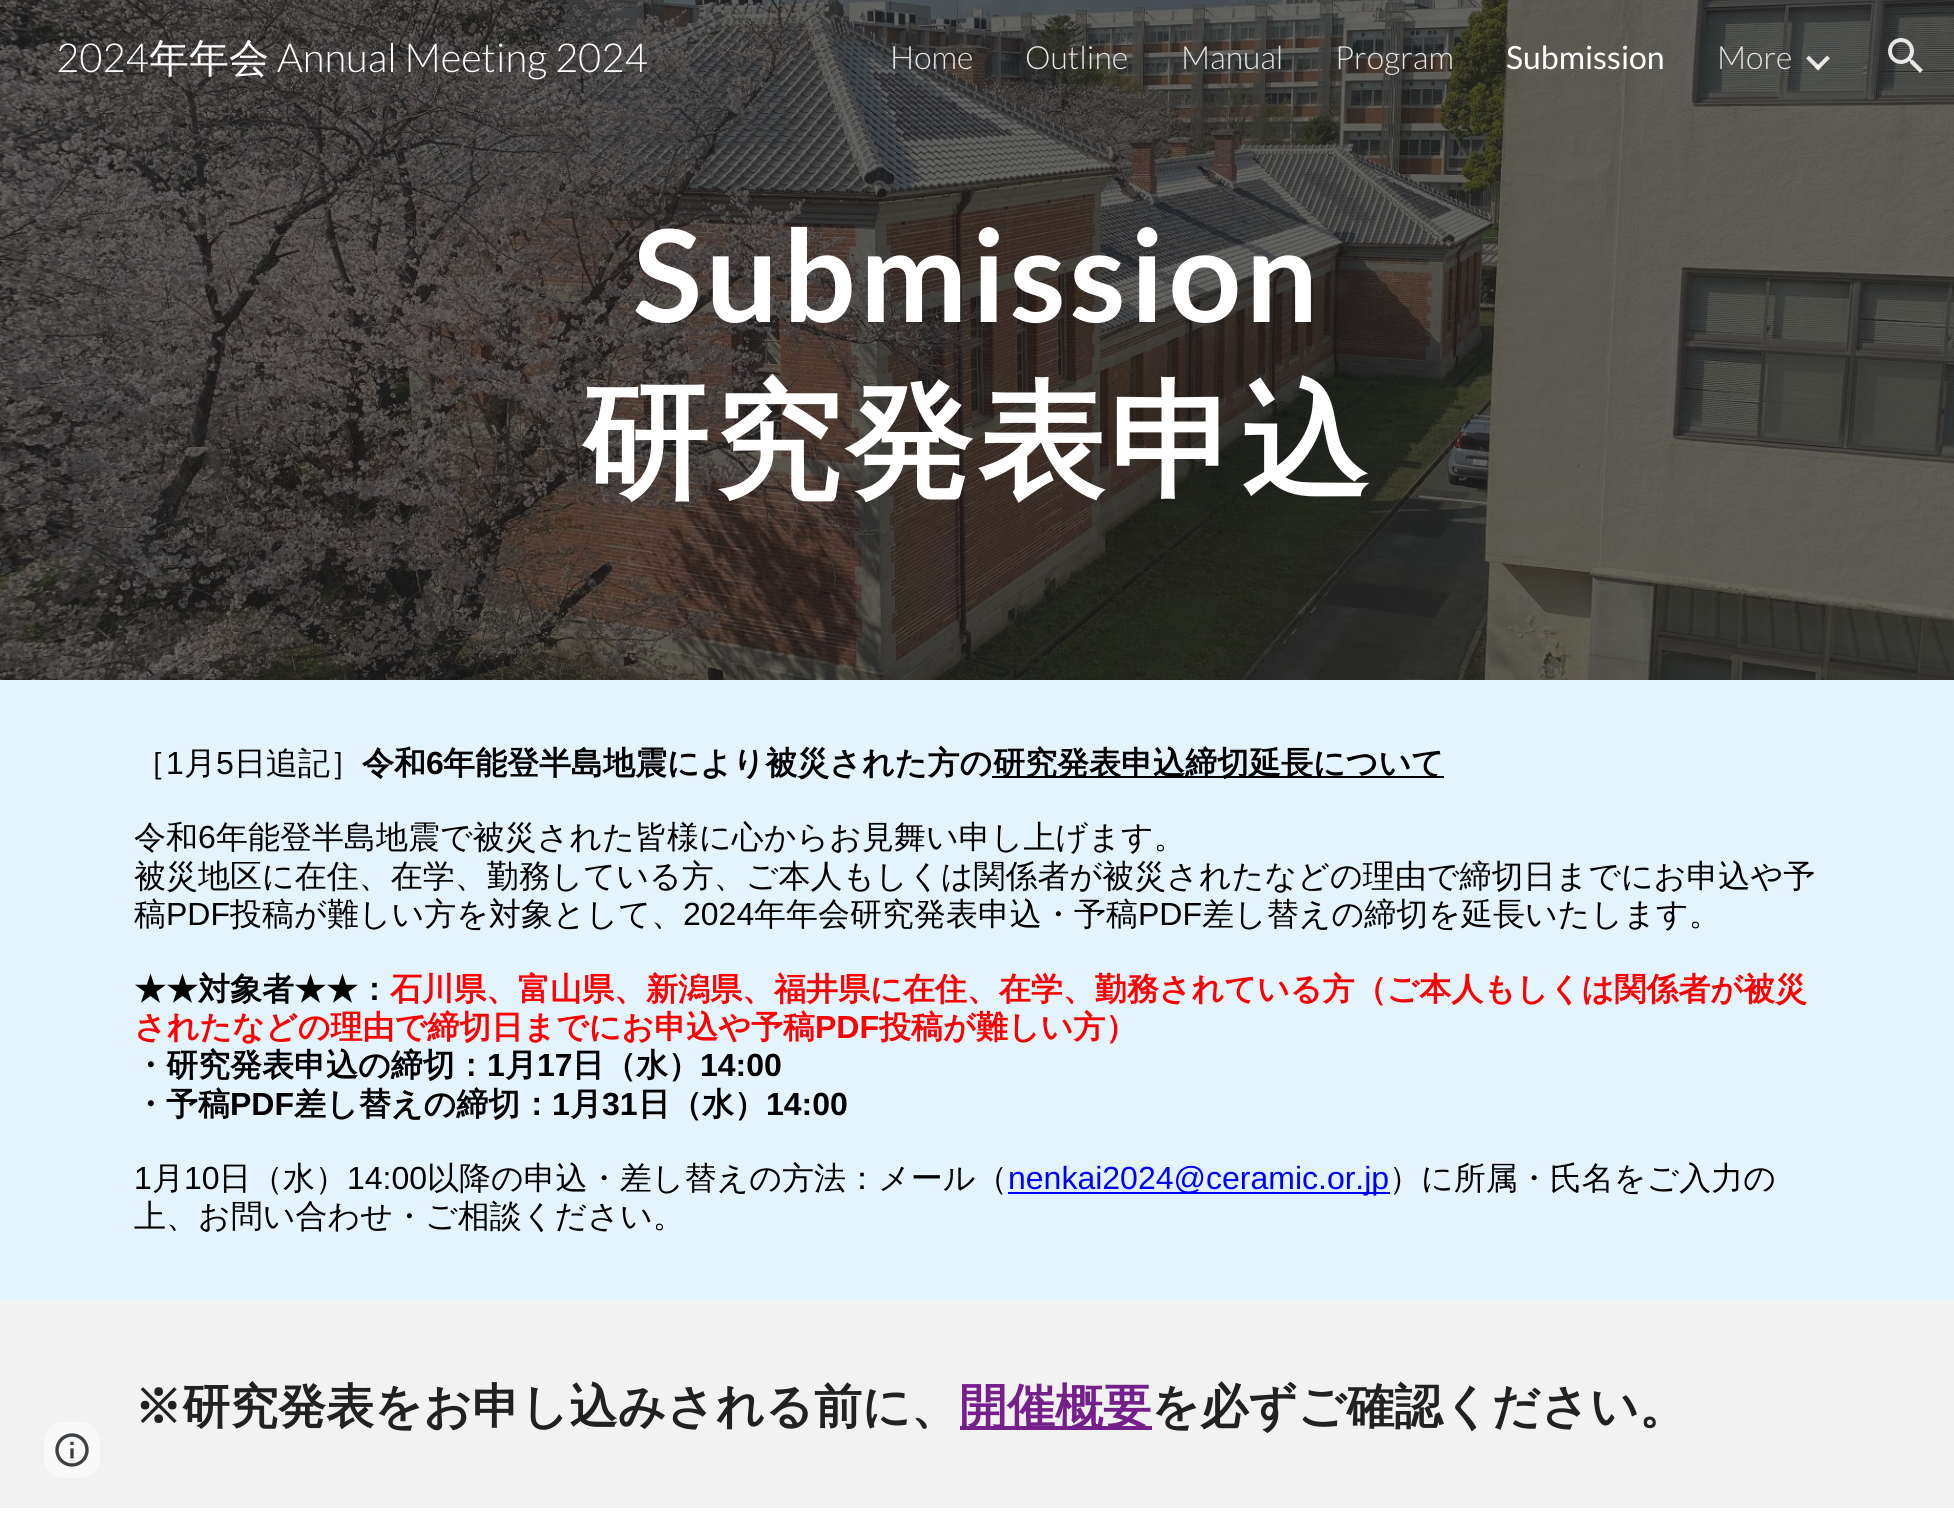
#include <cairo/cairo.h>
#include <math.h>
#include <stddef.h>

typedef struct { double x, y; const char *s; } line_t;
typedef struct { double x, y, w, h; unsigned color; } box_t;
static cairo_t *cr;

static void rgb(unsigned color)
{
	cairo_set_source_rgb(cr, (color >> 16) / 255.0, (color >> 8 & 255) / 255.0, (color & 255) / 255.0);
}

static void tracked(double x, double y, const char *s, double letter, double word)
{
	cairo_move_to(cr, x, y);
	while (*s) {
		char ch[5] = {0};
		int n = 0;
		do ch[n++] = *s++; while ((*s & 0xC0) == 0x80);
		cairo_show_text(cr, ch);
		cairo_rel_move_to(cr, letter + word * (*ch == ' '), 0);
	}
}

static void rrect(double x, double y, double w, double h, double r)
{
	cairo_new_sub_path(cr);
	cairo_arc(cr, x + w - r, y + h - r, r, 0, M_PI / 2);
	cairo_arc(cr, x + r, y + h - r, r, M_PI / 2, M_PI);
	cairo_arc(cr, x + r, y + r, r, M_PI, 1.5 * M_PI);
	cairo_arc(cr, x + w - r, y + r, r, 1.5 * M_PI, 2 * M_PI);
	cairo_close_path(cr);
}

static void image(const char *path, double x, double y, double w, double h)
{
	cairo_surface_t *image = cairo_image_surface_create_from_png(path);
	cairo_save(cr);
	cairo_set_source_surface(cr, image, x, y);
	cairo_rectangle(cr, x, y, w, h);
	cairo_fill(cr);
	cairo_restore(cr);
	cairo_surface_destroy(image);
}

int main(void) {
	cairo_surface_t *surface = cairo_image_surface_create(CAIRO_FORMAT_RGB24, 1954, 1518);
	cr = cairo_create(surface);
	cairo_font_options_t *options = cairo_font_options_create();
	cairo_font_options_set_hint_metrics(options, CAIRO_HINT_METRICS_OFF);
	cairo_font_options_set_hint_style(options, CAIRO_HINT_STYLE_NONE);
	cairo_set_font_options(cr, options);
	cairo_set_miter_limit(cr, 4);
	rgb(0xffffff);
	cairo_paint(cr);
	image("img/2.png", 0, 0, 1954, 680);
	cairo_new_path(cr);
	cairo_move_to(cr, 1807.5, 57);
	cairo_line_to(cr, 1819.5, 69);
	cairo_set_source_rgba(cr, 1, 1, 1, 0.87);
	cairo_set_line_width(cr, 4);
	cairo_stroke(cr);
	cairo_new_path(cr);
	cairo_move_to(cr, 1816.5, 69);
	cairo_line_to(cr, 1828.5, 57);
	cairo_stroke(cr);
	image("img/1.png", 1888, 38, 35, 35);
	{
		static const box_t items[] = {
			{0, 680, 1954, 620, 0xe4f4ff},
			{992, 776, 452, 2, 0x000000},
			{1008, 1192, 382, 2, 0x0000ff},
			{0, 1300, 1954, 208, 0xf2f2f2},
			{960, 1426, 192, 4, 0x741f8a},
		};
		for (size_t i = 0; i < sizeof items / sizeof *items; i++) {
			rgb(items[i].color);
			cairo_rectangle(cr, items[i].x, items[i].y, items[i].w, items[i].h);
			cairo_fill(cr);
		}
	}
	rgb(0xf9f9f9);
	rrect(44, 1422, 56, 56, 20);
	cairo_fill(cr);
	image("img/3.png", 55, 1433, 34, 34);
	cairo_select_font_face(cr, "Lato Light", CAIRO_FONT_SLANT_NORMAL, CAIRO_FONT_WEIGHT_NORMAL);
	cairo_set_font_size(cr, 40);
	rgb(0xffffff);
	cairo_move_to(cr, 56, 72);
	cairo_show_text(cr, "2024");
	cairo_select_font_face(cr, "WenQuanYi Zen Hei Medium", CAIRO_FONT_SLANT_NORMAL, CAIRO_FONT_WEIGHT_NORMAL);
	cairo_move_to(cr, 149, 72);
	cairo_show_text(cr, "年年会");
	cairo_select_font_face(cr, "Lato Light", CAIRO_FONT_SLANT_NORMAL, CAIRO_FONT_WEIGHT_NORMAL);
	cairo_move_to(cr, 277, 72);
	cairo_show_text(cr, "Annual Meeting 2024");
	cairo_set_font_size(cr, 32);
	rgb(0xe5e5e5);
	{
		static const line_t items[] = {
			{890, 69, "Home"},
			{1025, 69, "Outline"},
			{1181, 69, "Manual"},
			{1335, 69, "Program"},
		};
		for (size_t i = 0; i < sizeof items / sizeof *items; i++) {
			cairo_move_to(cr, items[i].x, items[i].y);
			cairo_show_text(cr, items[i].s);
		}
	}
	cairo_select_font_face(cr, "Lato", CAIRO_FONT_SLANT_NORMAL, CAIRO_FONT_WEIGHT_NORMAL);
	rgb(0xffffff);
	cairo_move_to(cr, 1506, 69);
	cairo_show_text(cr, "Submission");
	cairo_select_font_face(cr, "Lato Light", CAIRO_FONT_SLANT_NORMAL, CAIRO_FONT_WEIGHT_NORMAL);
	rgb(0xe5e5e5);
	cairo_move_to(cr, 1717, 69);
	cairo_show_text(cr, "More");
	cairo_select_font_face(cr, "Lato", CAIRO_FONT_SLANT_NORMAL, CAIRO_FONT_WEIGHT_BOLD);
	cairo_set_font_size(cr, 128);
	rgb(0xffffff);
	tracked(633, 322, "Submission", 4, 0);
	cairo_select_font_face(cr, "WenQuanYi Zen Hei", CAIRO_FONT_SLANT_NORMAL, CAIRO_FONT_WEIGHT_BOLD);
	tracked(581, 486, "研究発表申込", 4, 0);
	cairo_select_font_face(cr, "WenQuanYi Zen Hei Medium", CAIRO_FONT_SLANT_NORMAL, CAIRO_FONT_WEIGHT_NORMAL);
	cairo_set_font_size(cr, 32);
	rgb(0x000000);
	cairo_move_to(cr, 134, 774);
	cairo_show_text(cr, "［");
	cairo_select_font_face(cr, "Liberation Sans", CAIRO_FONT_SLANT_NORMAL, CAIRO_FONT_WEIGHT_NORMAL);
	cairo_move_to(cr, 166, 774);
	cairo_show_text(cr, "1");
	cairo_select_font_face(cr, "WenQuanYi Zen Hei Medium", CAIRO_FONT_SLANT_NORMAL, CAIRO_FONT_WEIGHT_NORMAL);
	cairo_move_to(cr, 184, 774);
	cairo_show_text(cr, "月");
	cairo_select_font_face(cr, "Liberation Sans", CAIRO_FONT_SLANT_NORMAL, CAIRO_FONT_WEIGHT_NORMAL);
	cairo_move_to(cr, 216, 774);
	cairo_show_text(cr, "5");
	cairo_select_font_face(cr, "WenQuanYi Zen Hei Medium", CAIRO_FONT_SLANT_NORMAL, CAIRO_FONT_WEIGHT_NORMAL);
	cairo_move_to(cr, 234, 774);
	cairo_show_text(cr, "日追記］");
	cairo_select_font_face(cr, "WenQuanYi Zen Hei", CAIRO_FONT_SLANT_NORMAL, CAIRO_FONT_WEIGHT_BOLD);
	cairo_move_to(cr, 362, 774);
	cairo_show_text(cr, "令和");
	cairo_select_font_face(cr, "Liberation Sans", CAIRO_FONT_SLANT_NORMAL, CAIRO_FONT_WEIGHT_BOLD);
	cairo_move_to(cr, 426, 774);
	cairo_show_text(cr, "6");
	cairo_select_font_face(cr, "WenQuanYi Zen Hei", CAIRO_FONT_SLANT_NORMAL, CAIRO_FONT_WEIGHT_BOLD);
	cairo_move_to(cr, 443, 774);
	cairo_show_text(cr, "年能登半島地震により被災された方の");
	cairo_move_to(cr, 993, 774);
	cairo_show_text(cr, "研究発表申込締切延長について");
	cairo_select_font_face(cr, "WenQuanYi Zen Hei Medium", CAIRO_FONT_SLANT_NORMAL, CAIRO_FONT_WEIGHT_NORMAL);
	cairo_move_to(cr, 134, 848);
	cairo_show_text(cr, "令和");
	cairo_select_font_face(cr, "Liberation Sans", CAIRO_FONT_SLANT_NORMAL, CAIRO_FONT_WEIGHT_NORMAL);
	cairo_move_to(cr, 198, 848);
	cairo_show_text(cr, "6");
	cairo_select_font_face(cr, "WenQuanYi Zen Hei Medium", CAIRO_FONT_SLANT_NORMAL, CAIRO_FONT_WEIGHT_NORMAL);
	{
		static const line_t items[] = {
			{216, 848, "年能登半島地震で被災された皆様に心からお見舞い申し上げます。"},
			{134, 887, "被災地区に在住、在学、勤務している方、ご本人もしくは関係者が被災されたなどの理由で締切日までにお申込や予"},
			{134, 925, "稿"},
		};
		for (size_t i = 0; i < sizeof items / sizeof *items; i++) {
			cairo_move_to(cr, items[i].x, items[i].y);
			cairo_show_text(cr, items[i].s);
		}
	}
	cairo_select_font_face(cr, "Liberation Sans", CAIRO_FONT_SLANT_NORMAL, CAIRO_FONT_WEIGHT_NORMAL);
	cairo_move_to(cr, 166, 925);
	cairo_show_text(cr, "PDF");
	cairo_select_font_face(cr, "WenQuanYi Zen Hei Medium", CAIRO_FONT_SLANT_NORMAL, CAIRO_FONT_WEIGHT_NORMAL);
	cairo_move_to(cr, 230, 925);
	cairo_show_text(cr, "投稿が難しい方を対象として、");
	cairo_select_font_face(cr, "Liberation Sans", CAIRO_FONT_SLANT_NORMAL, CAIRO_FONT_WEIGHT_NORMAL);
	cairo_move_to(cr, 683, 925);
	cairo_show_text(cr, "2024");
	cairo_select_font_face(cr, "WenQuanYi Zen Hei Medium", CAIRO_FONT_SLANT_NORMAL, CAIRO_FONT_WEIGHT_NORMAL);
	cairo_move_to(cr, 754, 925);
	cairo_show_text(cr, "年年会研究発表申込・予稿");
	cairo_select_font_face(cr, "Liberation Sans", CAIRO_FONT_SLANT_NORMAL, CAIRO_FONT_WEIGHT_NORMAL);
	cairo_move_to(cr, 1138, 925);
	cairo_show_text(cr, "PDF");
	cairo_select_font_face(cr, "WenQuanYi Zen Hei Medium", CAIRO_FONT_SLANT_NORMAL, CAIRO_FONT_WEIGHT_NORMAL);
	cairo_move_to(cr, 1202, 925);
	cairo_show_text(cr, "差し替えの締切を延長いたします。");
	cairo_select_font_face(cr, "WenQuanYi Zen Hei", CAIRO_FONT_SLANT_NORMAL, CAIRO_FONT_WEIGHT_BOLD);
	cairo_move_to(cr, 134, 1000);
	cairo_show_text(cr, "★★対象者★★：");
	rgb(0xff0000);
	cairo_move_to(cr, 390, 1000);
	cairo_show_text(cr, "石川県、富山県、新潟県、福井県に在住、在学、勤務されている方（ご本人もしくは関係者が被災");
	cairo_move_to(cr, 134, 1038);
	cairo_show_text(cr, "されたなどの理由で締切日までにお申込や予稿");
	cairo_select_font_face(cr, "Liberation Sans", CAIRO_FONT_SLANT_NORMAL, CAIRO_FONT_WEIGHT_BOLD);
	cairo_move_to(cr, 815, 1038);
	cairo_show_text(cr, "PDF");
	cairo_select_font_face(cr, "WenQuanYi Zen Hei", CAIRO_FONT_SLANT_NORMAL, CAIRO_FONT_WEIGHT_BOLD);
	cairo_move_to(cr, 879, 1038);
	cairo_show_text(cr, "投稿が難しい方）");
	rgb(0x000000);
	cairo_move_to(cr, 134, 1076);
	cairo_show_text(cr, "・研究発表申込の締切：");
	cairo_select_font_face(cr, "Liberation Sans", CAIRO_FONT_SLANT_NORMAL, CAIRO_FONT_WEIGHT_BOLD);
	cairo_move_to(cr, 487, 1076);
	cairo_show_text(cr, "1");
	cairo_select_font_face(cr, "WenQuanYi Zen Hei", CAIRO_FONT_SLANT_NORMAL, CAIRO_FONT_WEIGHT_BOLD);
	cairo_move_to(cr, 505, 1076);
	cairo_show_text(cr, "月");
	cairo_select_font_face(cr, "Liberation Sans", CAIRO_FONT_SLANT_NORMAL, CAIRO_FONT_WEIGHT_BOLD);
	cairo_move_to(cr, 537, 1076);
	cairo_show_text(cr, "17");
	cairo_select_font_face(cr, "WenQuanYi Zen Hei", CAIRO_FONT_SLANT_NORMAL, CAIRO_FONT_WEIGHT_BOLD);
	cairo_move_to(cr, 572, 1076);
	cairo_show_text(cr, "日（水）");
	cairo_select_font_face(cr, "Liberation Sans", CAIRO_FONT_SLANT_NORMAL, CAIRO_FONT_WEIGHT_BOLD);
	cairo_move_to(cr, 700, 1076);
	cairo_show_text(cr, "14:00");
	cairo_select_font_face(cr, "WenQuanYi Zen Hei", CAIRO_FONT_SLANT_NORMAL, CAIRO_FONT_WEIGHT_BOLD);
	cairo_move_to(cr, 134, 1115);
	cairo_show_text(cr, "・予稿");
	cairo_select_font_face(cr, "Liberation Sans", CAIRO_FONT_SLANT_NORMAL, CAIRO_FONT_WEIGHT_BOLD);
	cairo_move_to(cr, 230, 1115);
	cairo_show_text(cr, "PDF");
	cairo_select_font_face(cr, "WenQuanYi Zen Hei", CAIRO_FONT_SLANT_NORMAL, CAIRO_FONT_WEIGHT_BOLD);
	cairo_move_to(cr, 294, 1115);
	cairo_show_text(cr, "差し替えの締切：");
	cairo_select_font_face(cr, "Liberation Sans", CAIRO_FONT_SLANT_NORMAL, CAIRO_FONT_WEIGHT_BOLD);
	cairo_move_to(cr, 552, 1115);
	cairo_show_text(cr, "1");
	cairo_select_font_face(cr, "WenQuanYi Zen Hei", CAIRO_FONT_SLANT_NORMAL, CAIRO_FONT_WEIGHT_BOLD);
	cairo_move_to(cr, 570, 1115);
	cairo_show_text(cr, "月");
	cairo_select_font_face(cr, "Liberation Sans", CAIRO_FONT_SLANT_NORMAL, CAIRO_FONT_WEIGHT_BOLD);
	cairo_move_to(cr, 602, 1115);
	cairo_show_text(cr, "31");
	cairo_select_font_face(cr, "WenQuanYi Zen Hei", CAIRO_FONT_SLANT_NORMAL, CAIRO_FONT_WEIGHT_BOLD);
	cairo_move_to(cr, 638, 1115);
	cairo_show_text(cr, "日（水）");
	cairo_select_font_face(cr, "Liberation Sans", CAIRO_FONT_SLANT_NORMAL, CAIRO_FONT_WEIGHT_BOLD);
	cairo_move_to(cr, 766, 1115);
	cairo_show_text(cr, "14:00");
	cairo_select_font_face(cr, "Liberation Sans", CAIRO_FONT_SLANT_NORMAL, CAIRO_FONT_WEIGHT_NORMAL);
	cairo_move_to(cr, 134, 1189);
	cairo_show_text(cr, "1");
	cairo_select_font_face(cr, "WenQuanYi Zen Hei Medium", CAIRO_FONT_SLANT_NORMAL, CAIRO_FONT_WEIGHT_NORMAL);
	cairo_move_to(cr, 152, 1189);
	cairo_show_text(cr, "月");
	cairo_select_font_face(cr, "Liberation Sans", CAIRO_FONT_SLANT_NORMAL, CAIRO_FONT_WEIGHT_NORMAL);
	cairo_move_to(cr, 184, 1189);
	cairo_show_text(cr, "10");
	cairo_select_font_face(cr, "WenQuanYi Zen Hei Medium", CAIRO_FONT_SLANT_NORMAL, CAIRO_FONT_WEIGHT_NORMAL);
	cairo_move_to(cr, 219, 1189);
	cairo_show_text(cr, "日（水）");
	cairo_select_font_face(cr, "Liberation Sans", CAIRO_FONT_SLANT_NORMAL, CAIRO_FONT_WEIGHT_NORMAL);
	cairo_move_to(cr, 347, 1189);
	cairo_show_text(cr, "14:00");
	cairo_select_font_face(cr, "WenQuanYi Zen Hei Medium", CAIRO_FONT_SLANT_NORMAL, CAIRO_FONT_WEIGHT_NORMAL);
	cairo_move_to(cr, 427, 1189);
	cairo_show_text(cr, "以降の申込・差し替えの方法：メール（");
	cairo_select_font_face(cr, "Liberation Sans", CAIRO_FONT_SLANT_NORMAL, CAIRO_FONT_WEIGHT_NORMAL);
	rgb(0x0000ff);
	cairo_move_to(cr, 1008, 1189);
	cairo_show_text(cr, "nenkai2024@ceramic.or.jp");
	cairo_select_font_face(cr, "WenQuanYi Zen Hei Medium", CAIRO_FONT_SLANT_NORMAL, CAIRO_FONT_WEIGHT_NORMAL);
	rgb(0x000000);
	cairo_move_to(cr, 1389, 1189);
	cairo_show_text(cr, "）に所属・氏名をご入力の");
	cairo_move_to(cr, 134, 1227);
	cairo_show_text(cr, "上、お問い合わせ・ご相談ください。");
	cairo_select_font_face(cr, "WenQuanYi Zen Hei", CAIRO_FONT_SLANT_NORMAL, CAIRO_FONT_WEIGHT_BOLD);
	cairo_set_font_size(cr, 48);
	rgb(0x212121);
	cairo_move_to(cr, 134, 1423);
	cairo_show_text(cr, "※研究発表をお申し込みされる前に、");
	rgb(0x741f8a);
	cairo_move_to(cr, 959, 1423);
	cairo_show_text(cr, "開催概要");
	rgb(0x212121);
	cairo_move_to(cr, 1151, 1423);
	cairo_show_text(cr, "を必ずご確認ください。");
	cairo_surface_write_to_png(surface, "page.png");
	cairo_font_options_destroy(options);
	cairo_destroy(cr);
	cairo_surface_destroy(surface);
	return 0;
}
